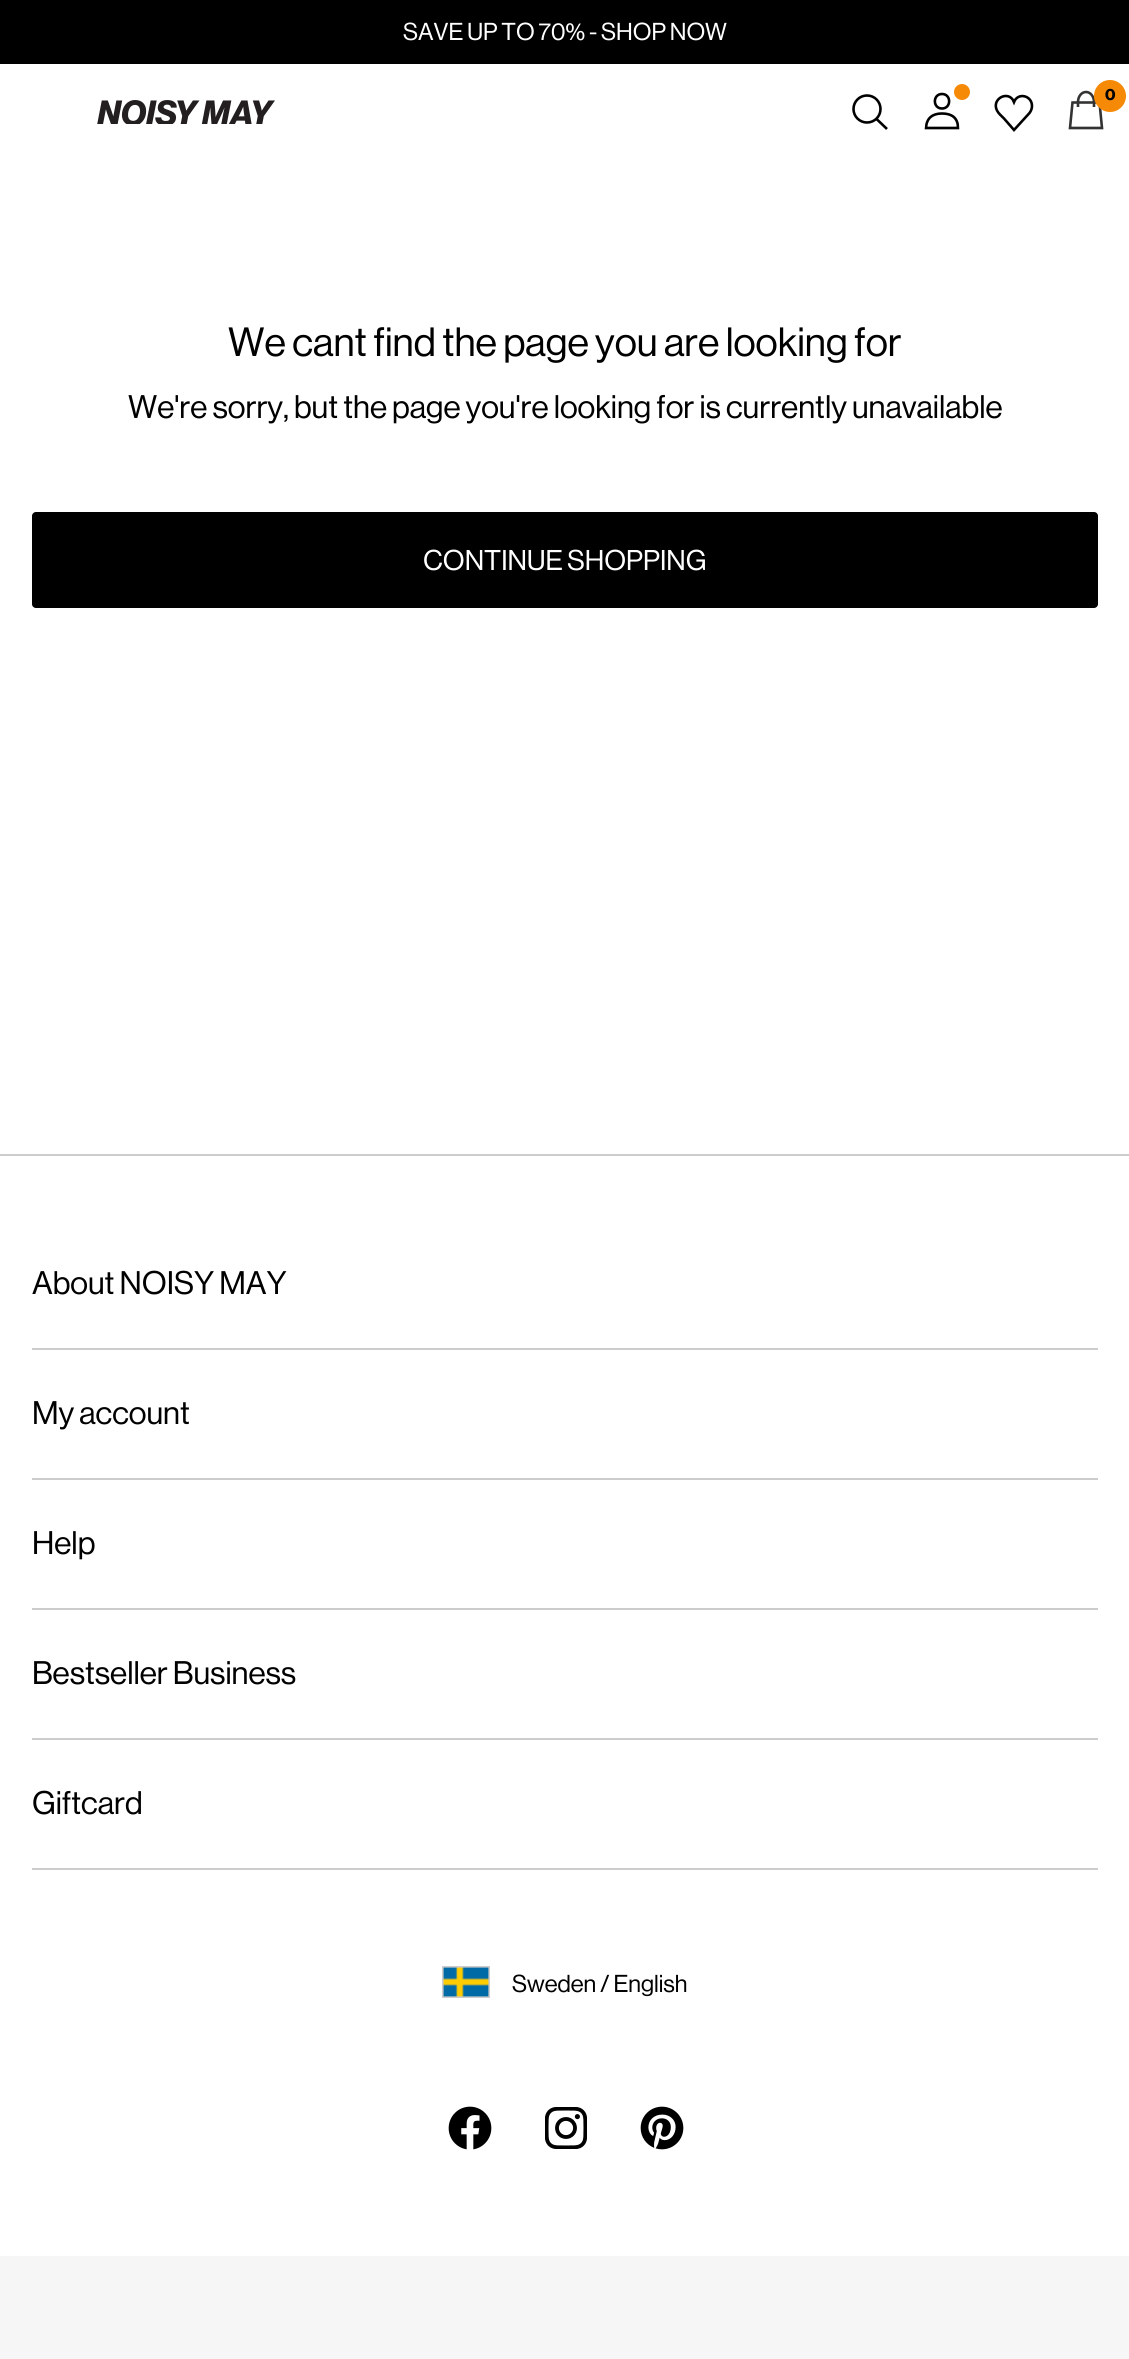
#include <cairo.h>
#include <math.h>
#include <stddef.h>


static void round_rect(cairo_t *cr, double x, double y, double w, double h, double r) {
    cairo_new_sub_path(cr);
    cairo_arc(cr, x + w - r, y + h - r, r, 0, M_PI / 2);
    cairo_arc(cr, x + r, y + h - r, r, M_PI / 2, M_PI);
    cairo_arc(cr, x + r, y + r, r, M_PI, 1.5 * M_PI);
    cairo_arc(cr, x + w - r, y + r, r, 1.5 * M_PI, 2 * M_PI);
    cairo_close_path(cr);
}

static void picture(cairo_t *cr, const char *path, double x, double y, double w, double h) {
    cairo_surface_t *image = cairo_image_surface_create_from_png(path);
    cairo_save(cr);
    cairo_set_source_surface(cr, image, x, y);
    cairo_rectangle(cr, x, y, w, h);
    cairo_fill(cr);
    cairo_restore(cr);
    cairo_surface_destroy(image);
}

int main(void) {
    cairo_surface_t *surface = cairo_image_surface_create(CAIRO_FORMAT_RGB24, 1129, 2359);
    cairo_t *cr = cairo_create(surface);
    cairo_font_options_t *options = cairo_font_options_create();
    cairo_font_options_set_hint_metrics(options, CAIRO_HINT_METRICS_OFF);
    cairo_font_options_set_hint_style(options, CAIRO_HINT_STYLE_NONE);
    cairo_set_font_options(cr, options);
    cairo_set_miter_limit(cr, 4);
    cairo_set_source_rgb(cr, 1, 1, 1);
    cairo_paint(cr);
    cairo_set_source_rgb(cr, 0, 0, 0);
    cairo_rectangle(cr, 0, 0, 1129, 64);
    cairo_fill(cr);
    cairo_select_font_face(cr, "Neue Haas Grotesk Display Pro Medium", CAIRO_FONT_SLANT_NORMAL, CAIRO_FONT_WEIGHT_NORMAL);
    cairo_set_font_size(cr, 24);
    cairo_set_source_rgb(cr, 1, 1, 1);
    cairo_move_to(cr, 403, 40);
    cairo_show_text(cr, "SAVE UP TO 70% - SHOP NOW");
    cairo_new_path(cr);
    cairo_arc(cr, 867, 109, 13.5, 0, 2 * M_PI);
    cairo_set_source_rgb(cr, 0, 0, 0);
    cairo_set_line_width(cr, 2.6);
    cairo_stroke(cr);
    cairo_new_path(cr);
    cairo_move_to(cr, 876, 118.5);
    cairo_line_to(cr, 887, 129);
    cairo_stroke(cr);
    cairo_new_path(cr);
    cairo_move_to(cr, 926, 128);
    cairo_line_to(cr, 958, 128);
    cairo_curve_to(cr, 958, 118, 952, 113.5, 942, 113.5);
    cairo_curve_to(cr, 932.5, 113.5, 926.5, 118, 926, 128);
    cairo_close_path(cr);
    cairo_move_to(cr, 942, 108.5);
    cairo_curve_to(cr, 951.5, 108.5, 951.5, 94, 942, 94);
    cairo_curve_to(cr, 932.5, 94, 932.5, 108.5, 942, 108.5);
    cairo_close_path(cr);
    cairo_stroke(cr);
    cairo_set_source_rgb(cr, 0.961, 0.541, 0.027);
    cairo_arc(cr, 962, 92, 8, 0, 2 * M_PI);
    cairo_fill(cr);
    cairo_new_path(cr);
    cairo_move_to(cr, 1032, 106);
    cairo_curve_to(cr, 1032, 95.5, 1018, 92, 1014, 102);
    cairo_curve_to(cr, 1009, 89.5, 991, 98.5, 997, 110.5);
    cairo_curve_to(cr, 998.5, 113.5, 1001.5, 116, 1004, 118.5);
    cairo_line_to(cr, 1014, 130);
    cairo_line_to(cr, 1029.5, 113);
    cairo_curve_to(cr, 1031, 111, 1032, 108.5, 1032, 106);
    cairo_close_path(cr);
    cairo_set_source_rgb(cr, 0, 0, 0);
    cairo_stroke(cr);
    cairo_new_path(cr);
    cairo_move_to(cr, 1070, 128);
    cairo_line_to(cr, 1072.5, 102.5);
    cairo_line_to(cr, 1099.5, 102.5);
    cairo_line_to(cr, 1102, 128);
    cairo_close_path(cr);
    cairo_move_to(cr, 1094, 107);
    cairo_line_to(cr, 1094, 102);
    cairo_curve_to(cr, 1094, 96.5, 1090.5, 92, 1086, 92);
    cairo_curve_to(cr, 1081.5, 92, 1078, 96.5, 1078, 102);
    cairo_line_to(cr, 1078, 107);
    cairo_set_source_rgb(cr, 0.2, 0.2, 0.2);
    cairo_stroke(cr);
    cairo_set_source_rgb(cr, 0.961, 0.541, 0.027);
    cairo_arc(cr, 1110, 96, 16, 0, 2 * M_PI);
    cairo_fill(cr);
    cairo_select_font_face(cr, "Neue Haas Grotesk Display Pro", CAIRO_FONT_SLANT_NORMAL, CAIRO_FONT_WEIGHT_BOLD);
    cairo_set_font_size(cr, 16);
    cairo_set_source_rgb(cr, 0, 0, 0);
    cairo_move_to(cr, 1105, 100);
    cairo_show_text(cr, "0");
    picture(cr, "img1.png", 97, 100, 178, 24);
    cairo_select_font_face(cr, "Neue Haas Grotesk Display Pro Medium", CAIRO_FONT_SLANT_NORMAL, CAIRO_FONT_WEIGHT_NORMAL);
    cairo_set_font_size(cr, 40);
    cairo_move_to(cr, 228, 356);
    cairo_show_text(cr, "We cant find the page you are looking for");
    cairo_set_font_size(cr, 32);
    cairo_move_to(cr, 128, 418);
    cairo_show_text(cr, "We're sorry, but the page you're looking for is currently unavailable");
    round_rect(cr, 32, 512, 1066, 96, 4);
    cairo_fill(cr);
    cairo_set_font_size(cr, 28);
    cairo_set_source_rgb(cr, 1, 1, 1);
    cairo_move_to(cr, 423, 570);
    cairo_show_text(cr, "CONTINUE SHOPPING");
    cairo_set_source_rgb(cr, 0.8, 0.8, 0.8);
    cairo_rectangle(cr, 0, 1154, 1129, 2);
    cairo_fill(cr);
    cairo_rectangle(cr, 32, 1348, 1066, 2);
    cairo_fill(cr);
    cairo_set_font_size(cr, 32);
    cairo_set_source_rgb(cr, 0, 0, 0);
    cairo_move_to(cr, 32, 1294);
    cairo_show_text(cr, "About NOISY MAY");
    cairo_set_source_rgb(cr, 0.8, 0.8, 0.8);
    cairo_rectangle(cr, 32, 1478, 1066, 2);
    cairo_fill(cr);
    cairo_set_source_rgb(cr, 0, 0, 0);
    cairo_move_to(cr, 32, 1424);
    cairo_show_text(cr, "My account");
    cairo_set_source_rgb(cr, 0.8, 0.8, 0.8);
    cairo_rectangle(cr, 32, 1608, 1066, 2);
    cairo_fill(cr);
    cairo_set_source_rgb(cr, 0, 0, 0);
    cairo_move_to(cr, 32, 1554);
    cairo_show_text(cr, "Help");
    cairo_set_source_rgb(cr, 0.8, 0.8, 0.8);
    cairo_rectangle(cr, 32, 1738, 1066, 2);
    cairo_fill(cr);
    cairo_set_source_rgb(cr, 0, 0, 0);
    cairo_move_to(cr, 32, 1684);
    cairo_show_text(cr, "Bestseller Business");
    cairo_set_source_rgb(cr, 0.8, 0.8, 0.8);
    cairo_rectangle(cr, 32, 1868, 1066, 2);
    cairo_fill(cr);
    cairo_set_source_rgb(cr, 0, 0, 0);
    cairo_move_to(cr, 32, 1814);
    cairo_show_text(cr, "Giftcard");
    picture(cr, "img2.png", 442, 1966, 48, 32);
    cairo_set_font_size(cr, 24);
    cairo_move_to(cr, 512, 1992);
    cairo_show_text(cr, "Sweden / English");
    picture(cr, "img3.png", 448, 2106, 44, 44);
    picture(cr, "img4.png", 545, 2107, 42, 42);
    picture(cr, "img5.png", 640, 2106, 44, 44);
    cairo_set_source_rgb(cr, 0.961, 0.961, 0.961);
    cairo_rectangle(cr, 0, 2256, 1129, 103);
    cairo_fill(cr);
    cairo_surface_write_to_png(surface, "page.png");
    cairo_font_options_destroy(options);
    cairo_destroy(cr);
    cairo_surface_destroy(surface);
    return 0;
}
